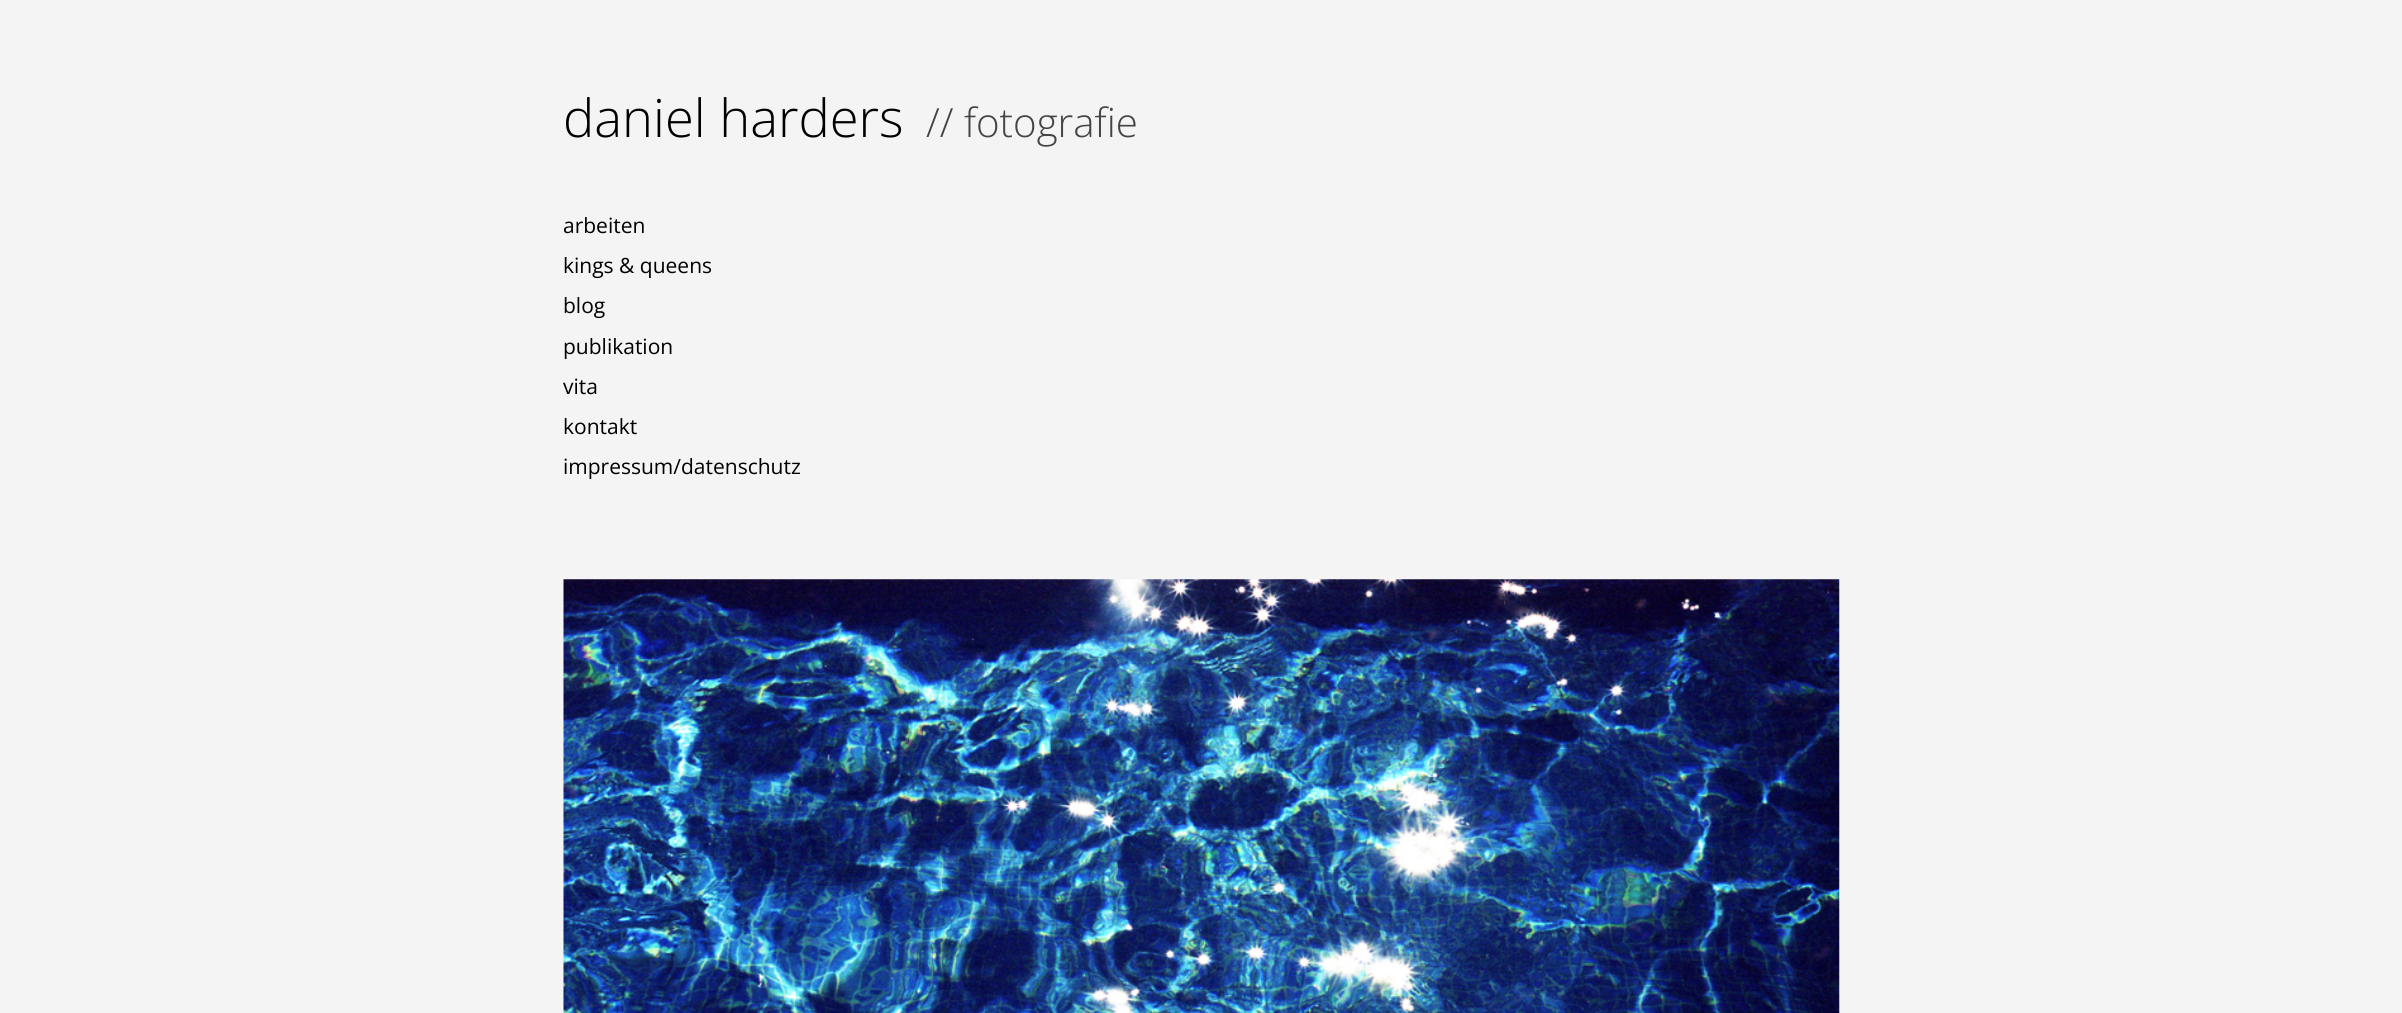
#include <cairo.h>
#include <math.h>
#include <stddef.h>


static void picture(cairo_t *cr, const char *path, double x, double y, double w, double h) {
    cairo_surface_t *image = cairo_image_surface_create_from_png(path);
    cairo_save(cr);
    cairo_set_source_surface(cr, image, x, y);
    cairo_rectangle(cr, x, y, w, h);
    cairo_fill(cr);
    cairo_restore(cr);
    cairo_surface_destroy(image);
}

int main(void) {
    cairo_surface_t *surface = cairo_image_surface_create(CAIRO_FORMAT_RGB24, 2402, 1013);
    cairo_t *cr = cairo_create(surface);
    cairo_font_options_t *options = cairo_font_options_create();
    cairo_font_options_set_hint_metrics(options, CAIRO_HINT_METRICS_OFF);
    cairo_font_options_set_hint_style(options, CAIRO_HINT_STYLE_NONE);
    cairo_set_font_options(cr, options);
    cairo_set_miter_limit(cr, 4);
    cairo_set_source_rgb(cr, 0.957, 0.957, 0.957);
    cairo_paint(cr);
    cairo_select_font_face(cr, "Open Sans Light", CAIRO_FONT_SLANT_NORMAL, CAIRO_FONT_WEIGHT_NORMAL);
    cairo_set_font_size(cr, 52.5);
    cairo_set_source_rgb(cr, 0, 0, 0);
    cairo_move_to(cr, 563, 137);
    cairo_show_text(cr, "daniel harders");
    cairo_set_font_size(cr, 40.25);
    cairo_set_source_rgb(cr, 0.267, 0.267, 0.267);
    cairo_move_to(cr, 926, 137);
    cairo_show_text(cr, "// fotografie");
    cairo_select_font_face(cr, "Open Sans", CAIRO_FONT_SLANT_NORMAL, CAIRO_FONT_WEIGHT_NORMAL);
    cairo_set_font_size(cr, 21);
    cairo_set_source_rgb(cr, 0, 0, 0);
    cairo_move_to(cr, 563, 233);
    cairo_show_text(cr, "arbeiten");
    cairo_move_to(cr, 563, 273);
    cairo_show_text(cr, "kings & queens");
    cairo_move_to(cr, 563, 313);
    cairo_show_text(cr, "blog");
    cairo_move_to(cr, 563, 354);
    cairo_show_text(cr, "publikation");
    cairo_move_to(cr, 563, 394);
    cairo_show_text(cr, "vita");
    cairo_move_to(cr, 563, 434);
    cairo_show_text(cr, "kontakt");
    cairo_move_to(cr, 563, 474);
    cairo_show_text(cr, "impressum/datenschutz");
    picture(cr, "img1.png", 563, 579, 1277, 434);
    cairo_surface_write_to_png(surface, "page.png");
    cairo_font_options_destroy(options);
    cairo_destroy(cr);
    cairo_surface_destroy(surface);
    return 0;
}
